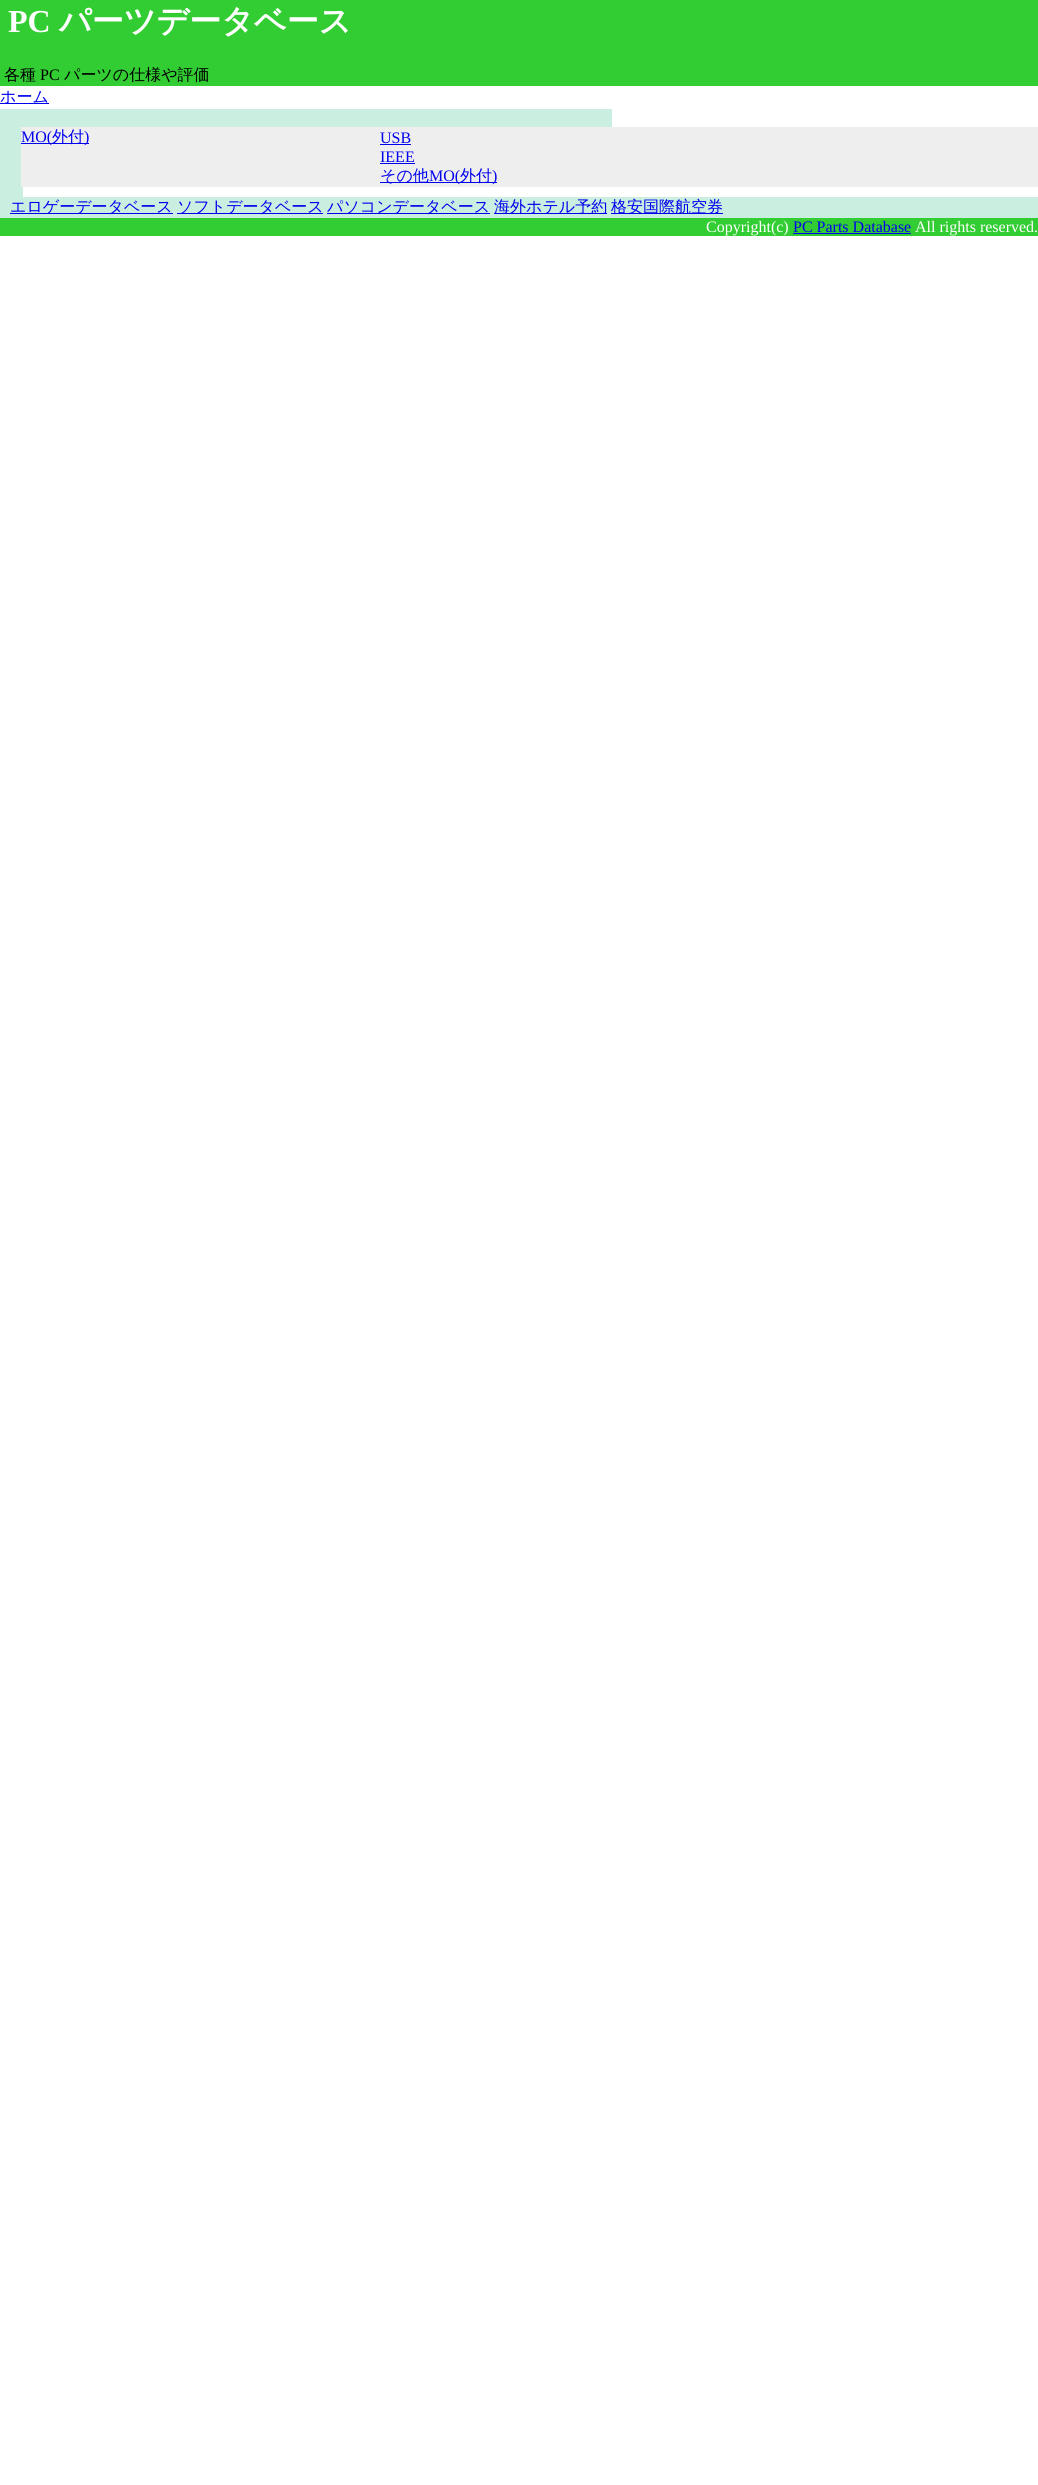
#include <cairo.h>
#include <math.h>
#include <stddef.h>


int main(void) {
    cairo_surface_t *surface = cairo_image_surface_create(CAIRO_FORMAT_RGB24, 1038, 2485);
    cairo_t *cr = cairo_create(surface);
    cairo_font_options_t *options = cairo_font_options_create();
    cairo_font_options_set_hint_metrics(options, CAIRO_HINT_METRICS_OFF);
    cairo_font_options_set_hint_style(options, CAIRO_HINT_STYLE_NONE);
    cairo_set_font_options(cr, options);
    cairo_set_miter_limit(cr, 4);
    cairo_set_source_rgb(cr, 1, 1, 1);
    cairo_paint(cr);
    cairo_set_source_rgb(cr, 0.196, 0.804, 0.196);
    cairo_rectangle(cr, 0, 0, 1026, 86);
    cairo_fill(cr);
    cairo_select_font_face(cr, "Liberation Serif", CAIRO_FONT_SLANT_NORMAL, CAIRO_FONT_WEIGHT_BOLD);
    cairo_set_font_size(cr, 32);
    cairo_set_source_rgb(cr, 1, 1, 1);
    cairo_move_to(cr, 8, 32);
    cairo_show_text(cr, "PC");
    cairo_select_font_face(cr, "WenQuanYi Zen Hei", CAIRO_FONT_SLANT_NORMAL, CAIRO_FONT_WEIGHT_BOLD);
    cairo_move_to(cr, 59, 32);
    cairo_show_text(cr, "パーツデータベース");
    cairo_select_font_face(cr, "WenQuanYi Zen Hei Medium", CAIRO_FONT_SLANT_NORMAL, CAIRO_FONT_WEIGHT_NORMAL);
    cairo_set_font_size(cr, 16);
    cairo_set_source_rgb(cr, 0, 0, 0);
    cairo_move_to(cr, 4, 80);
    cairo_show_text(cr, "各種");
    cairo_select_font_face(cr, "Liberation Serif", CAIRO_FONT_SLANT_NORMAL, CAIRO_FONT_WEIGHT_NORMAL);
    cairo_move_to(cr, 40, 80);
    cairo_show_text(cr, "PC");
    cairo_select_font_face(cr, "WenQuanYi Zen Hei Medium", CAIRO_FONT_SLANT_NORMAL, CAIRO_FONT_WEIGHT_NORMAL);
    cairo_move_to(cr, 64, 80);
    cairo_show_text(cr, "パーツの仕様や評価");
    cairo_set_source_rgb(cr, 0.196, 0.804, 0.196);
    cairo_rectangle(cr, 1026, 0, 12, 86);
    cairo_fill(cr);
    cairo_set_source_rgb(cr, 0, 0, 0.933);
    cairo_rectangle(cr, 0, 103, 49, 1);
    cairo_fill(cr);
    cairo_move_to(cr, 0, 102);
    cairo_show_text(cr, "ホーム");
    cairo_set_source_rgb(cr, 0.792, 0.933, 0.878);
    cairo_rectangle(cr, 0, 109, 612, 18);
    cairo_fill(cr);
    cairo_rectangle(cr, 0, 127, 21, 60);
    cairo_fill(cr);
    cairo_set_source_rgb(cr, 0.933, 0.933, 0.933);
    cairo_rectangle(cr, 21, 127, 1017, 60);
    cairo_fill(cr);
    cairo_set_source_rgb(cr, 0, 0, 0.933);
    cairo_rectangle(cr, 21, 143, 68, 1);
    cairo_fill(cr);
    cairo_select_font_face(cr, "Liberation Serif", CAIRO_FONT_SLANT_NORMAL, CAIRO_FONT_WEIGHT_NORMAL);
    cairo_move_to(cr, 21, 142);
    cairo_show_text(cr, "MO(");
    cairo_select_font_face(cr, "WenQuanYi Zen Hei Medium", CAIRO_FONT_SLANT_NORMAL, CAIRO_FONT_WEIGHT_NORMAL);
    cairo_move_to(cr, 52, 142);
    cairo_show_text(cr, "外付");
    cairo_select_font_face(cr, "Liberation Serif", CAIRO_FONT_SLANT_NORMAL, CAIRO_FONT_WEIGHT_NORMAL);
    cairo_move_to(cr, 84, 142);
    cairo_show_text(cr, ")");
    cairo_move_to(cr, 380, 143);
    cairo_show_text(cr, "USB");
    cairo_rectangle(cr, 380, 144, 31, 1);
    cairo_fill(cr);
    cairo_move_to(cr, 380, 162);
    cairo_show_text(cr, "IEEE");
    cairo_rectangle(cr, 380, 163, 35, 1);
    cairo_fill(cr);
    cairo_rectangle(cr, 380, 182, 117, 1);
    cairo_fill(cr);
    cairo_select_font_face(cr, "WenQuanYi Zen Hei Medium", CAIRO_FONT_SLANT_NORMAL, CAIRO_FONT_WEIGHT_NORMAL);
    cairo_move_to(cr, 380, 181);
    cairo_show_text(cr, "その他");
    cairo_select_font_face(cr, "Liberation Serif", CAIRO_FONT_SLANT_NORMAL, CAIRO_FONT_WEIGHT_NORMAL);
    cairo_move_to(cr, 429, 181);
    cairo_show_text(cr, "MO(");
    cairo_select_font_face(cr, "WenQuanYi Zen Hei Medium", CAIRO_FONT_SLANT_NORMAL, CAIRO_FONT_WEIGHT_NORMAL);
    cairo_move_to(cr, 460, 181);
    cairo_show_text(cr, "外付");
    cairo_select_font_face(cr, "Liberation Serif", CAIRO_FONT_SLANT_NORMAL, CAIRO_FONT_WEIGHT_NORMAL);
    cairo_move_to(cr, 492, 181);
    cairo_show_text(cr, ")");
    cairo_set_source_rgb(cr, 0.792, 0.933, 0.878);
    cairo_rectangle(cr, 0, 187, 23, 10);
    cairo_fill(cr);
    cairo_rectangle(cr, 0, 197, 1038, 21);
    cairo_fill(cr);
    cairo_set_source_rgb(cr, 0, 0, 0.933);
    cairo_rectangle(cr, 10, 213, 163, 1);
    cairo_fill(cr);
    cairo_select_font_face(cr, "WenQuanYi Zen Hei Medium", CAIRO_FONT_SLANT_NORMAL, CAIRO_FONT_WEIGHT_NORMAL);
    cairo_move_to(cr, 10, 212);
    cairo_show_text(cr, "エロゲーデータベース");
    cairo_rectangle(cr, 177, 213, 146, 1);
    cairo_fill(cr);
    cairo_move_to(cr, 177, 212);
    cairo_show_text(cr, "ソフトデータベース");
    cairo_rectangle(cr, 327, 213, 163, 1);
    cairo_fill(cr);
    cairo_move_to(cr, 327, 212);
    cairo_show_text(cr, "パソコンデータベース");
    cairo_rectangle(cr, 494, 213, 113, 1);
    cairo_fill(cr);
    cairo_move_to(cr, 494, 212);
    cairo_show_text(cr, "海外ホテル予約");
    cairo_rectangle(cr, 611, 213, 112, 1);
    cairo_fill(cr);
    cairo_move_to(cr, 611, 212);
    cairo_show_text(cr, "格安国際航空券");
    cairo_set_source_rgb(cr, 0.196, 0.804, 0.196);
    cairo_rectangle(cr, 0, 218, 1038, 18);
    cairo_fill(cr);
    cairo_select_font_face(cr, "Liberation Serif", CAIRO_FONT_SLANT_NORMAL, CAIRO_FONT_WEIGHT_NORMAL);
    cairo_set_source_rgb(cr, 1, 1, 1);
    cairo_move_to(cr, 706, 232);
    cairo_show_text(cr, "Copyright(c)");
    cairo_set_source_rgb(cr, 0, 0, 0.933);
    cairo_move_to(cr, 793, 232);
    cairo_show_text(cr, "PC Parts Database");
    cairo_rectangle(cr, 793, 233, 118, 1);
    cairo_fill(cr);
    cairo_set_source_rgb(cr, 1, 1, 1);
    cairo_move_to(cr, 915, 232);
    cairo_show_text(cr, "All rights reserved.");
    cairo_surface_write_to_png(surface, "page.png");
    cairo_font_options_destroy(options);
    cairo_destroy(cr);
    cairo_surface_destroy(surface);
    return 0;
}
